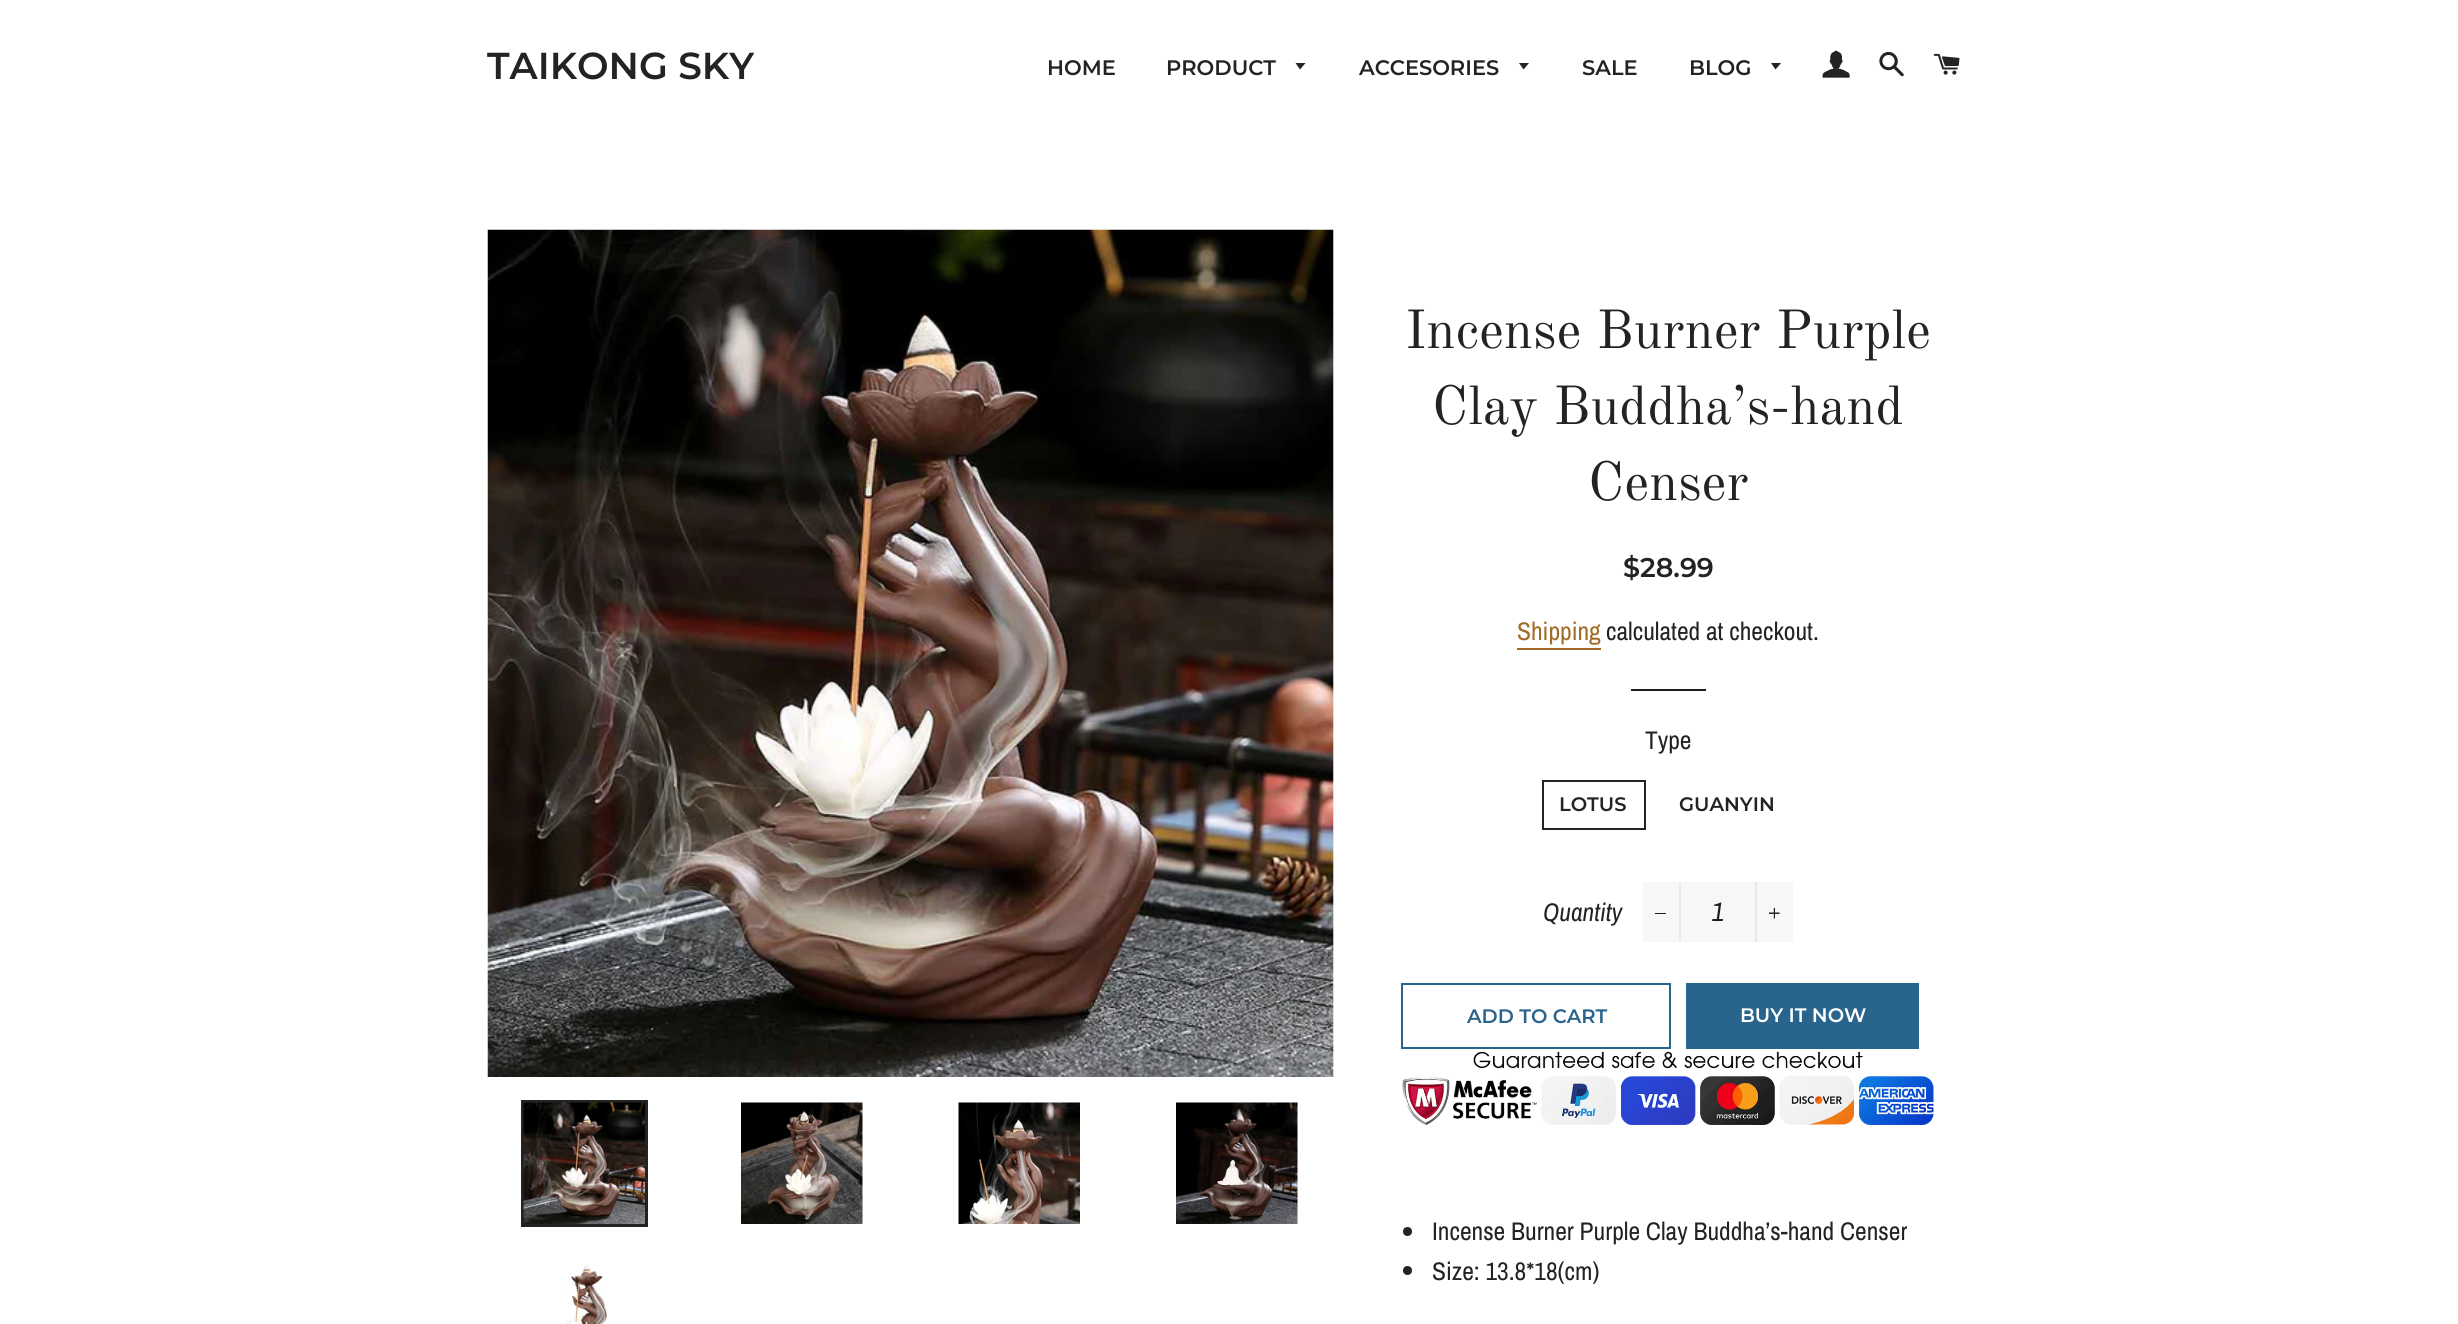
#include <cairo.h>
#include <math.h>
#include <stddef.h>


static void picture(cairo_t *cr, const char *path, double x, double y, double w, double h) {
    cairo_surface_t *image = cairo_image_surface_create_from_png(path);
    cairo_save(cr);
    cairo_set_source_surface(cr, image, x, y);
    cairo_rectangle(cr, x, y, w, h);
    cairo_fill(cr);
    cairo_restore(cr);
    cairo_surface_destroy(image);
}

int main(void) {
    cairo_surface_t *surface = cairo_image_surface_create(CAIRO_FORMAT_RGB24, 2458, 1324);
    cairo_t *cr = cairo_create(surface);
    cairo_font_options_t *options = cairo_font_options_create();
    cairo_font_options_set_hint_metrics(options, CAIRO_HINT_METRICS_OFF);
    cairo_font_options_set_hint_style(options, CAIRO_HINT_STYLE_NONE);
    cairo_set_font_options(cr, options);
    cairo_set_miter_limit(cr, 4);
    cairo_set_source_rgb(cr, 1, 1, 1);
    cairo_paint(cr);
    cairo_select_font_face(cr, "Montserrat SemiBold", CAIRO_FONT_SLANT_NORMAL, CAIRO_FONT_WEIGHT_NORMAL);
    cairo_set_font_size(cr, 37.5);
    cairo_set_source_rgb(cr, 0.133, 0.137, 0.137);
    cairo_move_to(cr, 487, 79);
    cairo_show_text(cr, "TAIKONG SKY");
    cairo_set_font_size(cr, 21);
    cairo_move_to(cr, 1047, 75);
    cairo_show_text(cr, "HOME");
    cairo_move_to(cr, 1166, 75);
    cairo_show_text(cr, "PRODUCT");
    cairo_new_path(cr);
    cairo_move_to(cr, 1295.5, 63);
    cairo_line_to(cr, 1300, 69.5);
    cairo_line_to(cr, 1305.5, 63);
    cairo_close_path(cr);
    cairo_fill(cr);
    cairo_move_to(cr, 1359, 75);
    cairo_show_text(cr, "ACCESORIES");
    cairo_new_path(cr);
    cairo_move_to(cr, 1519, 63);
    cairo_line_to(cr, 1523.5, 69.5);
    cairo_line_to(cr, 1529, 63);
    cairo_close_path(cr);
    cairo_fill(cr);
    cairo_move_to(cr, 1582, 75);
    cairo_show_text(cr, "SALE");
    cairo_move_to(cr, 1689, 75);
    cairo_show_text(cr, "BLOG");
    cairo_new_path(cr);
    cairo_move_to(cr, 1771, 63);
    cairo_line_to(cr, 1775.5, 69.5);
    cairo_line_to(cr, 1781, 63);
    cairo_close_path(cr);
    cairo_fill(cr);
    picture(cr, "img1.png", 1822, 50, 28, 28);
    picture(cr, "img2.png", 1879, 51, 25, 26);
    picture(cr, "img3.png", 1933, 53, 27, 22);
    cairo_set_source_rgb(cr, 0.969, 0.969, 0.969);
    cairo_rectangle(cr, 1333, 230, 1, 847);
    cairo_fill(cr);
    picture(cr, "img4.png", 487, 229, 847, 848);
    cairo_rectangle(cr, 522.5, 1101.5, 124, 124);
    cairo_set_source_rgb(cr, 0.133, 0.137, 0.137);
    cairo_set_line_width(cr, 3);
    cairo_stroke(cr);
    picture(cr, "img5.png", 523, 1102, 122, 122);
    picture(cr, "img6.png", 741, 1102, 122, 122);
    picture(cr, "img7.png", 958, 1102, 122, 122);
    picture(cr, "img8.png", 1176, 1102, 122, 122);
    picture(cr, "img9.png", 566, 1264, 42, 60);
    cairo_select_font_face(cr, "Old Standard TT", CAIRO_FONT_SLANT_NORMAL, CAIRO_FONT_WEIGHT_NORMAL);
    cairo_set_font_size(cr, 54);
    cairo_move_to(cr, 1405, 348);
    cairo_show_text(cr, "Incense Burner Purple");
    cairo_move_to(cr, 1432, 424);
    cairo_show_text(cr, "Clay Buddha’s-hand");
    cairo_move_to(cr, 1588, 500);
    cairo_show_text(cr, "Censer");
    cairo_select_font_face(cr, "Montserrat SemiBold", CAIRO_FONT_SLANT_NORMAL, CAIRO_FONT_WEIGHT_NORMAL);
    cairo_set_font_size(cr, 27);
    cairo_move_to(cr, 1623, 577);
    cairo_show_text(cr, "$28.99");
    cairo_select_font_face(cr, "Archivo Narrow", CAIRO_FONT_SLANT_NORMAL, CAIRO_FONT_WEIGHT_NORMAL);
    cairo_set_font_size(cr, 25.5);
    cairo_set_source_rgb(cr, 0.635, 0.42, 0.145);
    cairo_move_to(cr, 1517, 640);
    cairo_show_text(cr, "Shipping");
    cairo_rectangle(cr, 1517, 648, 84, 2);
    cairo_fill(cr);
    cairo_set_source_rgb(cr, 0.133, 0.137, 0.137);
    cairo_move_to(cr, 1606, 640);
    cairo_show_text(cr, "calculated at checkout.");
    cairo_set_source_rgb(cr, 0.11, 0.114, 0.114);
    cairo_rectangle(cr, 1631, 689, 75, 2);
    cairo_fill(cr);
    cairo_set_source_rgb(cr, 0.133, 0.137, 0.137);
    cairo_move_to(cr, 1645, 749);
    cairo_show_text(cr, "Type");
    cairo_rectangle(cr, 1543, 781, 102, 48);
    cairo_set_line_width(cr, 2);
    cairo_stroke(cr);
    cairo_select_font_face(cr, "Montserrat SemiBold", CAIRO_FONT_SLANT_NORMAL, CAIRO_FONT_WEIGHT_NORMAL);
    cairo_set_font_size(cr, 19.5);
    cairo_move_to(cr, 1559, 811);
    cairo_show_text(cr, "LOTUS");
    cairo_move_to(cr, 1679, 811);
    cairo_show_text(cr, "GUANYIN");
    cairo_select_font_face(cr, "Archivo Narrow", CAIRO_FONT_SLANT_ITALIC, CAIRO_FONT_WEIGHT_NORMAL);
    cairo_set_font_size(cr, 25.5);
    cairo_move_to(cr, 1543, 921);
    cairo_show_text(cr, "Quantity");
    cairo_set_source_rgb(cr, 0.965, 0.965, 0.965);
    cairo_rectangle(cr, 1643, 882, 150, 60);
    cairo_fill(cr);
    cairo_set_source_rgb(cr, 0.914, 0.914, 0.914);
    cairo_rectangle(cr, 1679, 882, 2, 60);
    cairo_fill(cr);
    cairo_set_source_rgb(cr, 0.11, 0.114, 0.114);
    cairo_rectangle(cr, 1655, 913, 11, 1);
    cairo_fill(cr);
    cairo_set_font_size(cr, 27);
    cairo_move_to(cr, 1712, 921);
    cairo_show_text(cr, "1");
    cairo_set_source_rgb(cr, 0.914, 0.914, 0.914);
    cairo_rectangle(cr, 1755, 882, 2, 60);
    cairo_fill(cr);
    picture(cr, "img10.png", 1769, 907, 11, 12);
    cairo_rectangle(cr, 1402, 984, 268, 64);
    cairo_set_source_rgb(cr, 0.161, 0.392, 0.553);
    cairo_stroke(cr);
    cairo_select_font_face(cr, "Montserrat SemiBold", CAIRO_FONT_SLANT_NORMAL, CAIRO_FONT_WEIGHT_NORMAL);
    cairo_set_font_size(cr, 19.5);
    cairo_move_to(cr, 1467, 1023);
    cairo_show_text(cr, "ADD TO CART");
    cairo_rectangle(cr, 1686, 983, 233, 66);
    cairo_fill(cr);
    cairo_set_source_rgb(cr, 1, 1, 1);
    cairo_move_to(cr, 1740, 1022);
    cairo_show_text(cr, "BUY IT NOW");
    picture(cr, "img11.png", 1402, 1051, 532, 74);
    cairo_set_source_rgb(cr, 0.133, 0.137, 0.137);
    cairo_arc(cr, 1407.5, 1231.5, 4.5, 0, 2 * M_PI);
    cairo_fill(cr);
    cairo_select_font_face(cr, "Archivo Narrow", CAIRO_FONT_SLANT_NORMAL, CAIRO_FONT_WEIGHT_NORMAL);
    cairo_set_font_size(cr, 25.5);
    cairo_move_to(cr, 1432, 1240);
    cairo_show_text(cr, "Incense Burner Purple Clay Buddha’s-hand Censer");
    cairo_new_path(cr);
    cairo_arc(cr, 1407.5, 1270.5, 4.5, 0, 2 * M_PI);
    cairo_fill(cr);
    cairo_move_to(cr, 1432, 1280);
    cairo_show_text(cr, "Size: 13.8*18(cm)");
    cairo_surface_write_to_png(surface, "page.png");
    cairo_font_options_destroy(options);
    cairo_destroy(cr);
    cairo_surface_destroy(surface);
    return 0;
}
